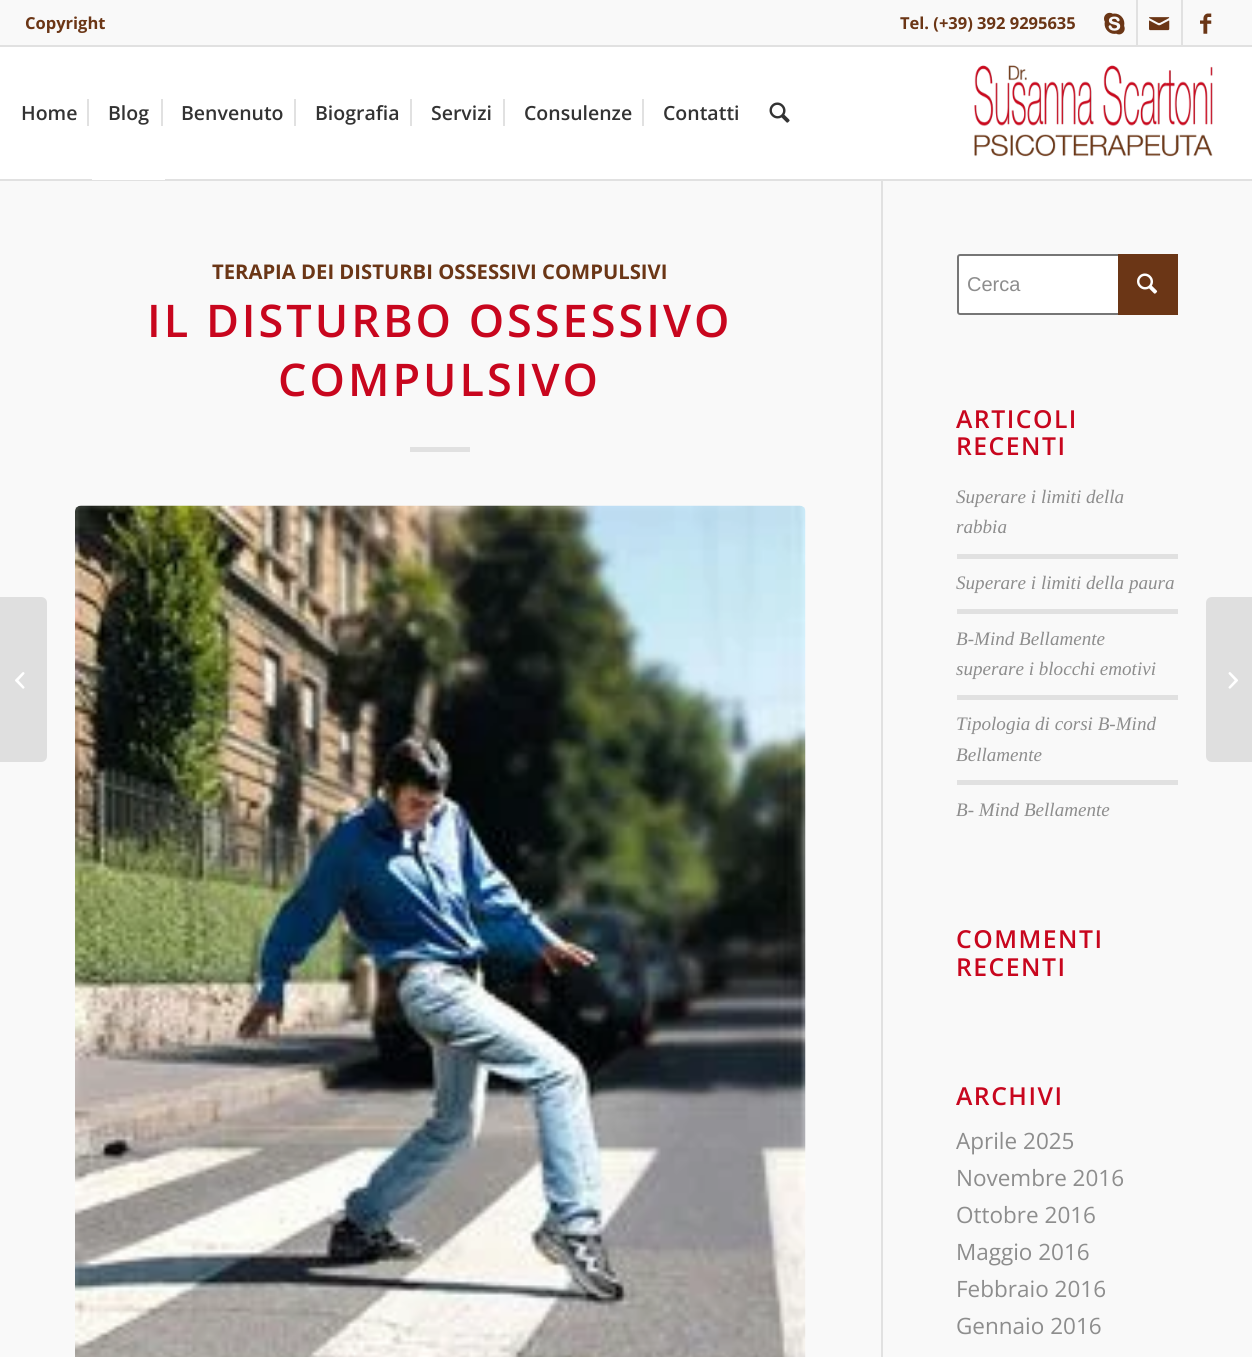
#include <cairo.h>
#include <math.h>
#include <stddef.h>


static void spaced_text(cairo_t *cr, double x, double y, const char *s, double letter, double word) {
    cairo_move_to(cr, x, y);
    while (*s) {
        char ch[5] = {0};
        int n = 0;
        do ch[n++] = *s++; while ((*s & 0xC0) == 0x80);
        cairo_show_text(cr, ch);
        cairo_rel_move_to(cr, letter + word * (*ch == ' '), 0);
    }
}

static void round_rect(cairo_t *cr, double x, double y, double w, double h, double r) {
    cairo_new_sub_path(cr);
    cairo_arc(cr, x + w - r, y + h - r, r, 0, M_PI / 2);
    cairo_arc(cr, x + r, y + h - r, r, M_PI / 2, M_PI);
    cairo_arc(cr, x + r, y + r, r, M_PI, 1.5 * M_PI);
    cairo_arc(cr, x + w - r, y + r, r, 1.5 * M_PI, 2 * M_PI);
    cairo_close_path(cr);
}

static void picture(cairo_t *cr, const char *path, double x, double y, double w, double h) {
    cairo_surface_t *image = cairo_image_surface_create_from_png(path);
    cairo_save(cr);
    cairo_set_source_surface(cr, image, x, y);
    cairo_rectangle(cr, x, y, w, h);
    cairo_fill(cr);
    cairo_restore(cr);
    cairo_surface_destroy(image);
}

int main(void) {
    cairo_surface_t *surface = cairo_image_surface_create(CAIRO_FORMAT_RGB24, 1252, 1357);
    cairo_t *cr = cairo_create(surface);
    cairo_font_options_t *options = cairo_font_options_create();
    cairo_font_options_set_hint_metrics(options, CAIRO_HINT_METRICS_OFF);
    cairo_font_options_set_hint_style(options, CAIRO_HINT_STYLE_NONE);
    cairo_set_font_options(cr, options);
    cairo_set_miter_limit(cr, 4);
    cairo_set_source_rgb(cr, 0.973, 0.973, 0.973);
    cairo_paint(cr);
    cairo_set_source_rgb(cr, 0.882, 0.882, 0.882);
    cairo_rectangle(cr, 0, 45, 1252, 2);
    cairo_fill(cr);
    cairo_select_font_face(cr, "Open Sans", CAIRO_FONT_SLANT_NORMAL, CAIRO_FONT_WEIGHT_BOLD);
    cairo_set_font_size(cr, 16.5);
    cairo_set_source_rgb(cr, 0.42, 0.212, 0.086);
    cairo_move_to(cr, 25, 29);
    cairo_show_text(cr, "Copyright");
    cairo_move_to(cr, 900, 29);
    cairo_show_text(cr, "Tel. (+39) 392 9295635");
    cairo_set_source_rgb(cr, 0.882, 0.882, 0.882);
    cairo_rectangle(cr, 1136, 0, 2, 45);
    cairo_fill(cr);
    picture(cr, "img1.png", 1104, 12, 21, 23);
    cairo_rectangle(cr, 1181, 0, 2, 45);
    cairo_fill(cr);
    picture(cr, "img2.png", 1149, 17, 21, 14);
    picture(cr, "img3.png", 1200, 13, 12, 21);
    cairo_set_source_rgb(cr, 1, 1, 1);
    cairo_rectangle(cr, 0, 47, 1252, 132);
    cairo_fill(cr);
    cairo_set_source_rgb(cr, 0.882, 0.882, 0.882);
    cairo_rectangle(cr, 881, 179, 2, 1178);
    cairo_fill(cr);
    cairo_rectangle(cr, 0, 179, 1252, 2);
    cairo_fill(cr);
    cairo_select_font_face(cr, "Open Sans SemiBold", CAIRO_FONT_SLANT_NORMAL, CAIRO_FONT_WEIGHT_NORMAL);
    cairo_set_font_size(cr, 19.5);
    cairo_set_source_rgb(cr, 0.2, 0.2, 0.2);
    cairo_move_to(cr, 21, 120);
    cairo_show_text(cr, "Home");
    cairo_move_to(cr, 108, 120);
    cairo_show_text(cr, "Blog");
    cairo_set_source_rgb(cr, 0.882, 0.882, 0.882);
    cairo_rectangle(cr, 87, 99, 2, 27);
    cairo_fill(cr);
    cairo_set_source_rgb(cr, 1, 1, 1);
    cairo_rectangle(cr, 92, 179, 73, 1);
    cairo_fill(cr);
    cairo_set_source_rgb(cr, 0.2, 0.2, 0.2);
    cairo_move_to(cr, 181, 120);
    cairo_show_text(cr, "Benvenuto");
    cairo_set_source_rgb(cr, 0.882, 0.882, 0.882);
    cairo_rectangle(cr, 161, 99, 2, 27);
    cairo_fill(cr);
    cairo_set_source_rgb(cr, 0.2, 0.2, 0.2);
    cairo_move_to(cr, 315, 120);
    cairo_show_text(cr, "Biografia");
    cairo_set_source_rgb(cr, 0.882, 0.882, 0.882);
    cairo_rectangle(cr, 294, 99, 2, 27);
    cairo_fill(cr);
    cairo_set_source_rgb(cr, 0.2, 0.2, 0.2);
    cairo_move_to(cr, 431, 120);
    cairo_show_text(cr, "Servizi");
    cairo_set_source_rgb(cr, 0.882, 0.882, 0.882);
    cairo_rectangle(cr, 410, 99, 2, 27);
    cairo_fill(cr);
    cairo_set_source_rgb(cr, 0.2, 0.2, 0.2);
    cairo_move_to(cr, 524, 120);
    cairo_show_text(cr, "Consulenze");
    cairo_set_source_rgb(cr, 0.882, 0.882, 0.882);
    cairo_rectangle(cr, 503, 99, 2, 27);
    cairo_fill(cr);
    cairo_set_source_rgb(cr, 0.2, 0.2, 0.2);
    cairo_move_to(cr, 663, 120);
    cairo_show_text(cr, "Contatti");
    cairo_set_source_rgb(cr, 0.882, 0.882, 0.882);
    cairo_rectangle(cr, 642, 99, 2, 27);
    cairo_fill(cr);
    picture(cr, "img4.png", 769, 102, 21, 21);
    picture(cr, "img5.png", 974, 65, 239, 92);
    cairo_set_source_rgb(cr, 0.875, 0.875, 0.875);
    cairo_new_path(cr);
    cairo_move_to(cr, 0, 597);
    cairo_line_to(cr, 41, 597);
    cairo_curve_to(cr, 44.5, 597, 47, 599.5, 47, 603);
    cairo_line_to(cr, 47, 756);
    cairo_curve_to(cr, 47, 759.5, 44.5, 762, 41, 762);
    cairo_line_to(cr, 0, 762);
    cairo_close_path(cr);
    cairo_fill(cr);
    picture(cr, "img6.png", 15, 672, 10, 17);
    cairo_select_font_face(cr, "Open Sans", CAIRO_FONT_SLANT_NORMAL, CAIRO_FONT_WEIGHT_BOLD);
    cairo_set_font_size(cr, 20.25);
    cairo_set_source_rgb(cr, 0.42, 0.212, 0.086);
    cairo_move_to(cr, 212, 279);
    cairo_show_text(cr, "TERAPIA DEI DISTURBI OSSESSIVI COMPULSIVI");
    cairo_select_font_face(cr, "Open Sans SemiBold", CAIRO_FONT_SLANT_NORMAL, CAIRO_FONT_WEIGHT_NORMAL);
    cairo_set_font_size(cr, 45);
    cairo_set_source_rgb(cr, 0.784, 0.027, 0.118);
    spaced_text(cr, 147, 337, "IL DISTURBO OSSESSIVO", 3, 0);
    spaced_text(cr, 278, 396, "COMPULSIVO", 3, 0);
    cairo_set_source_rgb(cr, 0.882, 0.882, 0.882);
    cairo_rectangle(cr, 410, 447, 60, 5);
    cairo_fill(cr);
    picture(cr, "img7.png", 75, 505, 731, 852);
    cairo_set_source_rgb(cr, 1, 1, 1);
    round_rect(cr, 958, 255, 219, 59, 2);
    cairo_fill_preserve(cr);
    cairo_set_source_rgb(cr, 0.463, 0.463, 0.463);
    cairo_stroke(cr);
    cairo_select_font_face(cr, "Liberation Sans", CAIRO_FONT_SLANT_NORMAL, CAIRO_FONT_WEIGHT_NORMAL);
    cairo_set_font_size(cr, 20);
    cairo_set_source_rgb(cr, 0.553, 0.553, 0.553);
    cairo_move_to(cr, 967, 291);
    cairo_show_text(cr, "Cerca");
    cairo_set_source_rgb(cr, 0.42, 0.212, 0.086);
    cairo_rectangle(cr, 1118, 254, 60, 61);
    cairo_fill(cr);
    picture(cr, "img8.png", 1137, 273, 21, 21);
    cairo_select_font_face(cr, "Open Sans SemiBold", CAIRO_FONT_SLANT_NORMAL, CAIRO_FONT_WEIGHT_NORMAL);
    cairo_set_font_size(cr, 24.75);
    cairo_set_source_rgb(cr, 0.784, 0.027, 0.118);
    spaced_text(cr, 956, 428, "ARTICOLI", 1.5, 0);
    spaced_text(cr, 956, 455, "RECENTI", 1.5, 0);
    cairo_select_font_face(cr, "Liberation Serif", CAIRO_FONT_SLANT_ITALIC, CAIRO_FONT_WEIGHT_NORMAL);
    cairo_set_font_size(cr, 19.1);
    cairo_set_source_rgb(cr, 0.553, 0.553, 0.553);
    cairo_move_to(cr, 956, 503);
    cairo_show_text(cr, "Superare i limiti della");
    cairo_move_to(cr, 956, 533);
    cairo_show_text(cr, "rabbia");
    cairo_set_source_rgb(cr, 0.882, 0.882, 0.882);
    cairo_rectangle(cr, 957, 554, 221, 5);
    cairo_fill(cr);
    cairo_set_source_rgb(cr, 0.553, 0.553, 0.553);
    cairo_move_to(cr, 956, 589);
    cairo_show_text(cr, "Superare i limiti della paura");
    cairo_set_source_rgb(cr, 0.882, 0.882, 0.882);
    cairo_rectangle(cr, 957, 609, 221, 5);
    cairo_fill(cr);
    cairo_set_source_rgb(cr, 0.553, 0.553, 0.553);
    cairo_move_to(cr, 956, 645);
    cairo_show_text(cr, "B-Mind Bellamente");
    cairo_move_to(cr, 956, 675);
    cairo_show_text(cr, "superare i blocchi emotivi");
    cairo_set_source_rgb(cr, 0.882, 0.882, 0.882);
    cairo_rectangle(cr, 957, 695, 221, 5);
    cairo_fill(cr);
    cairo_set_source_rgb(cr, 0.553, 0.553, 0.553);
    cairo_move_to(cr, 956, 730);
    cairo_show_text(cr, "Tipologia di corsi B-Mind");
    cairo_move_to(cr, 956, 761);
    cairo_show_text(cr, "Bellamente");
    cairo_set_source_rgb(cr, 0.882, 0.882, 0.882);
    cairo_rectangle(cr, 957, 780, 221, 5);
    cairo_fill(cr);
    cairo_set_source_rgb(cr, 0.553, 0.553, 0.553);
    cairo_move_to(cr, 956, 816);
    cairo_show_text(cr, "B- Mind Bellamente");
    cairo_select_font_face(cr, "Open Sans SemiBold", CAIRO_FONT_SLANT_NORMAL, CAIRO_FONT_WEIGHT_NORMAL);
    cairo_set_font_size(cr, 24.75);
    cairo_set_source_rgb(cr, 0.784, 0.027, 0.118);
    spaced_text(cr, 956, 948, "COMMENTI", 1.5, 0);
    spaced_text(cr, 956, 976, "RECENTI", 1.5, 0);
    spaced_text(cr, 956, 1105, "ARCHIVI", 1.5, 0);
    cairo_select_font_face(cr, "Open Sans", CAIRO_FONT_SLANT_NORMAL, CAIRO_FONT_WEIGHT_NORMAL);
    cairo_set_font_size(cr, 22.5);
    cairo_set_source_rgb(cr, 0.553, 0.553, 0.553);
    cairo_move_to(cr, 956, 1149);
    cairo_show_text(cr, "Aprile 2025");
    cairo_move_to(cr, 956, 1186);
    cairo_show_text(cr, "Novembre 2016");
    cairo_move_to(cr, 956, 1223);
    cairo_show_text(cr, "Ottobre 2016");
    cairo_move_to(cr, 956, 1260);
    cairo_show_text(cr, "Maggio 2016");
    cairo_move_to(cr, 956, 1297);
    cairo_show_text(cr, "Febbraio 2016");
    cairo_move_to(cr, 956, 1334);
    cairo_show_text(cr, "Gennaio 2016");
    cairo_set_source_rgb(cr, 0.875, 0.875, 0.875);
    cairo_new_path(cr);
    cairo_move_to(cr, 1212, 597);
    cairo_line_to(cr, 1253, 597);
    cairo_line_to(cr, 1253, 762);
    cairo_line_to(cr, 1212, 762);
    cairo_curve_to(cr, 1208.5, 762, 1206, 759.5, 1206, 756);
    cairo_line_to(cr, 1206, 603);
    cairo_curve_to(cr, 1206, 599.5, 1208.5, 597, 1212, 597);
    cairo_close_path(cr);
    cairo_fill(cr);
    picture(cr, "img9.png", 1228, 672, 10, 17);
    cairo_surface_write_to_png(surface, "page.png");
    cairo_font_options_destroy(options);
    cairo_destroy(cr);
    cairo_surface_destroy(surface);
    return 0;
}
